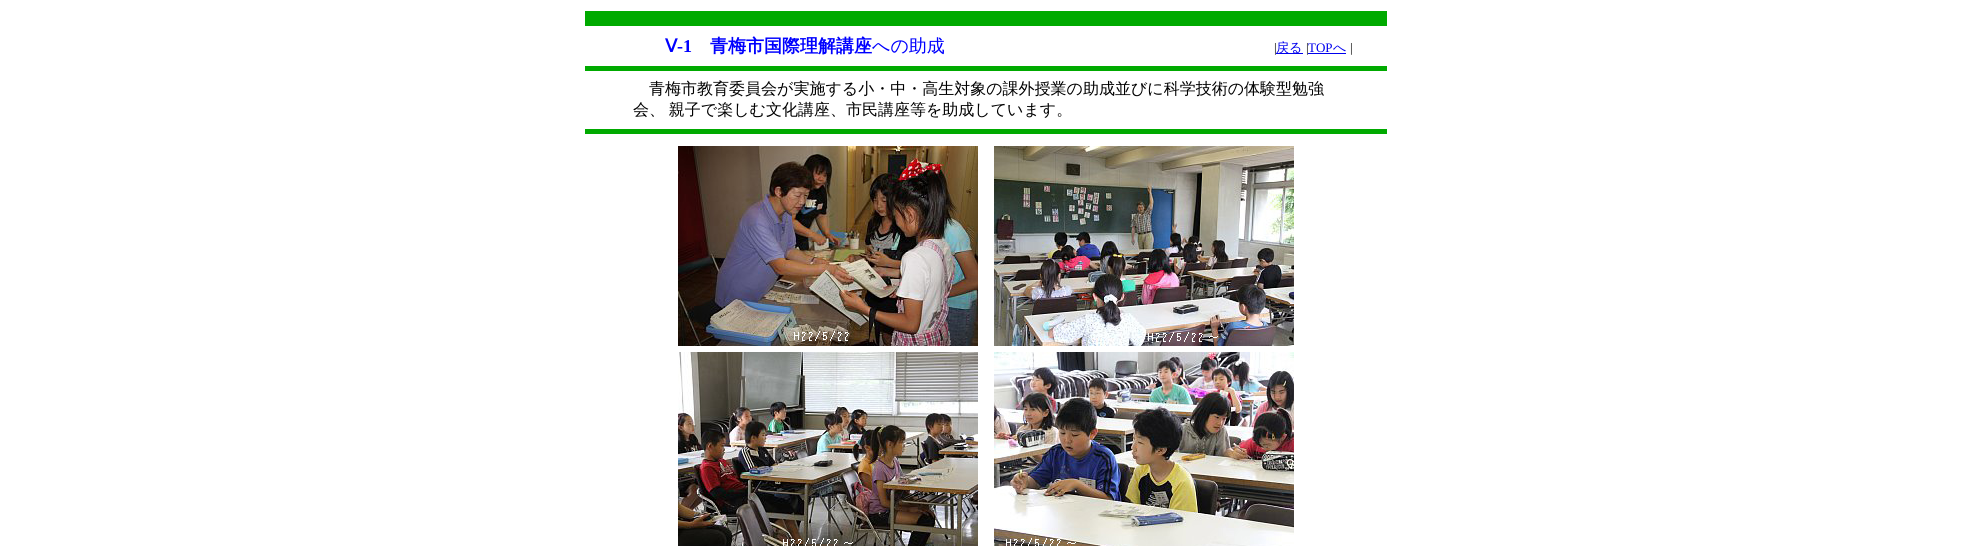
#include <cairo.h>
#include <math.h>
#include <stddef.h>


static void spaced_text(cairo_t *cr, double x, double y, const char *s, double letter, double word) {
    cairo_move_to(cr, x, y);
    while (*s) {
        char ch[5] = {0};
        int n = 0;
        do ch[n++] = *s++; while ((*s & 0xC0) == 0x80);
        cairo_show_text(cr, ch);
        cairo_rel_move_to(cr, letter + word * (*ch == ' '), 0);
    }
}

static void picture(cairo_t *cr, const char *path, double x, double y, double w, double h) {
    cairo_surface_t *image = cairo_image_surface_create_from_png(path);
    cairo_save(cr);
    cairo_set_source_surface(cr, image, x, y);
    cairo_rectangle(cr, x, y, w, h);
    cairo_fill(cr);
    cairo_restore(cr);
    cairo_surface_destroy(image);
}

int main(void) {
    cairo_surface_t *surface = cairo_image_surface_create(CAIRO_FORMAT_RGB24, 1972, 546);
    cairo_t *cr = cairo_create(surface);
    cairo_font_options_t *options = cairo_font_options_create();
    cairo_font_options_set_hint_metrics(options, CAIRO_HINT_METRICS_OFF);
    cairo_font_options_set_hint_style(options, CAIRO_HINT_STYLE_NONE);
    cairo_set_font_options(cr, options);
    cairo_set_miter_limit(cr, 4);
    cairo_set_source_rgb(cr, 1, 1, 1);
    cairo_paint(cr);
    cairo_set_source_rgb(cr, 0, 0.667, 0);
    cairo_rectangle(cr, 585, 11, 802, 15);
    cairo_fill(cr);
    cairo_select_font_face(cr, "DejaVu Sans", CAIRO_FONT_SLANT_NORMAL, CAIRO_FONT_WEIGHT_BOLD);
    cairo_set_font_size(cr, 18);
    cairo_set_source_rgb(cr, 0, 0, 1);
    cairo_move_to(cr, 665, 52);
    cairo_show_text(cr, "Ⅴ");
    cairo_select_font_face(cr, "Liberation Serif", CAIRO_FONT_SLANT_NORMAL, CAIRO_FONT_WEIGHT_BOLD);
    cairo_move_to(cr, 677, 52);
    cairo_show_text(cr, "-1");
    cairo_select_font_face(cr, "WenQuanYi Zen Hei", CAIRO_FONT_SLANT_NORMAL, CAIRO_FONT_WEIGHT_BOLD);
    cairo_move_to(cr, 710, 52);
    cairo_show_text(cr, "青梅市国際理解講座");
    cairo_select_font_face(cr, "WenQuanYi Zen Hei Medium", CAIRO_FONT_SLANT_NORMAL, CAIRO_FONT_WEIGHT_NORMAL);
    cairo_move_to(cr, 872, 52);
    cairo_show_text(cr, "への助成");
    cairo_select_font_face(cr, "Liberation Serif", CAIRO_FONT_SLANT_NORMAL, CAIRO_FONT_WEIGHT_NORMAL);
    cairo_set_font_size(cr, 13);
    cairo_set_source_rgb(cr, 0, 0, 0);
    cairo_move_to(cr, 1274, 52);
    cairo_show_text(cr, "|");
    cairo_set_source_rgb(cr, 0, 0, 0.933);
    cairo_rectangle(cr, 1276, 53, 27, 1);
    cairo_fill(cr);
    cairo_select_font_face(cr, "WenQuanYi Zen Hei Medium", CAIRO_FONT_SLANT_NORMAL, CAIRO_FONT_WEIGHT_NORMAL);
    cairo_move_to(cr, 1276, 52);
    cairo_show_text(cr, "戻る");
    cairo_select_font_face(cr, "Liberation Serif", CAIRO_FONT_SLANT_NORMAL, CAIRO_FONT_WEIGHT_NORMAL);
    cairo_set_source_rgb(cr, 0, 0, 0);
    cairo_move_to(cr, 1306, 52);
    cairo_show_text(cr, "|");
    cairo_set_source_rgb(cr, 0, 0, 0.933);
    cairo_rectangle(cr, 1308, 53, 38, 1);
    cairo_fill(cr);
    cairo_move_to(cr, 1308, 52);
    cairo_show_text(cr, "TOP");
    cairo_select_font_face(cr, "WenQuanYi Zen Hei Medium", CAIRO_FONT_SLANT_NORMAL, CAIRO_FONT_WEIGHT_NORMAL);
    cairo_move_to(cr, 1333, 52);
    cairo_show_text(cr, "へ");
    cairo_select_font_face(cr, "Liberation Serif", CAIRO_FONT_SLANT_NORMAL, CAIRO_FONT_WEIGHT_NORMAL);
    cairo_set_source_rgb(cr, 0, 0, 0);
    cairo_move_to(cr, 1350, 52);
    cairo_show_text(cr, "|");
    cairo_set_source_rgb(cr, 0, 0.667, 0);
    cairo_rectangle(cr, 585, 66, 802, 5);
    cairo_fill(cr);
    cairo_select_font_face(cr, "WenQuanYi Zen Hei Medium", CAIRO_FONT_SLANT_NORMAL, CAIRO_FONT_WEIGHT_NORMAL);
    cairo_set_font_size(cr, 16);
    cairo_set_source_rgb(cr, 0, 0, 0);
    cairo_move_to(cr, 649, 94);
    cairo_show_text(cr, "青梅市教育委員会が実施する小・中・高生対象の課外授業の助成並びに科学技術の体験型勉強");
    spaced_text(cr, 633, 115, "会、 親子で楽しむ文化講座、市民講座等を助成しています。", 0, -1);
    cairo_set_source_rgb(cr, 0, 0.667, 0);
    cairo_rectangle(cr, 585, 129, 802, 5);
    cairo_fill(cr);
    picture(cr, "img1.png", 678, 146, 300, 200);
    picture(cr, "img2.png", 994, 146, 300, 200);
    picture(cr, "img3.png", 678, 352, 300, 194);
    picture(cr, "img4.png", 994, 352, 300, 194);
    cairo_surface_write_to_png(surface, "page.png");
    cairo_font_options_destroy(options);
    cairo_destroy(cr);
    cairo_surface_destroy(surface);
    return 0;
}
